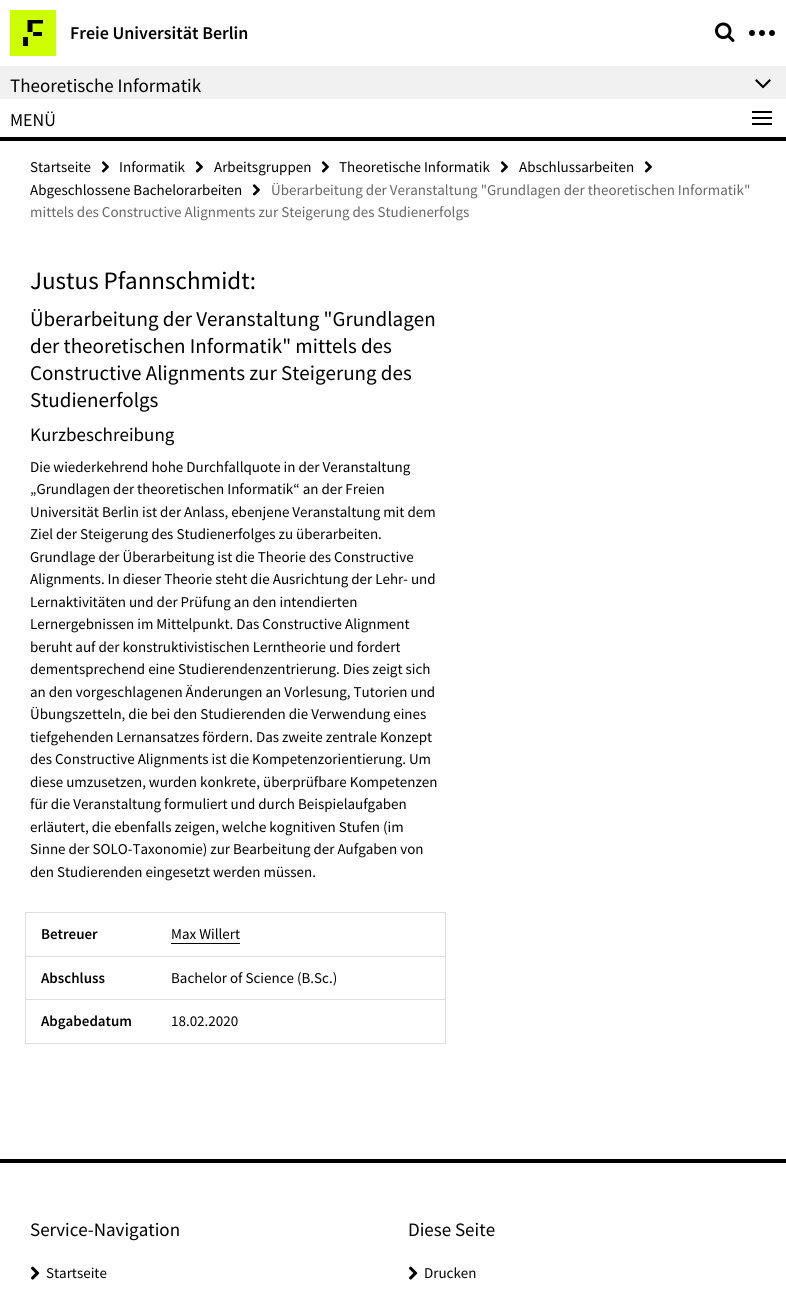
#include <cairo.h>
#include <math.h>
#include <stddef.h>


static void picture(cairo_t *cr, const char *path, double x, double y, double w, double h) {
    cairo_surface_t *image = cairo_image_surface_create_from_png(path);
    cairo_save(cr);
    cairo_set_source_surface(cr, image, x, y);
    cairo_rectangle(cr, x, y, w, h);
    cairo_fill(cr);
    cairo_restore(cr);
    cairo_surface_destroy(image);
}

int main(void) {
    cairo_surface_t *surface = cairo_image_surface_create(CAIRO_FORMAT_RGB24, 786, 1298);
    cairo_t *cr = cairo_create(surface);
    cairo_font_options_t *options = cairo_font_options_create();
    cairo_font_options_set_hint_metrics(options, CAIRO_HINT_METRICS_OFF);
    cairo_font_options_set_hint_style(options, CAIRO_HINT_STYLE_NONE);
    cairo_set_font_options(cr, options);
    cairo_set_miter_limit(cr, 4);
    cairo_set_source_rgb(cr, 1, 1, 1);
    cairo_paint(cr);
    cairo_set_source_rgb(cr, 0.8, 1, 0);
    cairo_rectangle(cr, 10, 10, 46, 46);
    cairo_fill(cr);
    cairo_set_source_rgb(cr, 0, 0, 0);
    cairo_new_path(cr);
    cairo_move_to(cr, 27.5, 20);
    cairo_line_to(cr, 43, 20);
    cairo_line_to(cr, 43, 23.5);
    cairo_line_to(cr, 32.5, 23.5);
    cairo_line_to(cr, 32.5, 32);
    cairo_line_to(cr, 27.5, 32);
    cairo_close_path(cr);
    cairo_fill(cr);
    cairo_rectangle(cr, 33, 32, 9, 4);
    cairo_fill(cr);
    cairo_rectangle(cr, 23, 37, 5, 9);
    cairo_fill(cr);
    cairo_select_font_face(cr, "Source Sans Pro SemiBold", CAIRO_FONT_SLANT_NORMAL, CAIRO_FONT_WEIGHT_NORMAL);
    cairo_set_font_size(cr, 18);
    cairo_move_to(cr, 70, 39);
    cairo_show_text(cr, "Freie Universität Berlin");
    picture(cr, "img1.png", 715, 22, 20, 20);
    cairo_arc(cr, 752, 33, 3, 0, 2 * M_PI);
    cairo_fill(cr);
    cairo_arc(cr, 762, 33, 3, 0, 2 * M_PI);
    cairo_fill(cr);
    cairo_arc(cr, 772, 33, 3, 0, 2 * M_PI);
    cairo_fill(cr);
    cairo_set_source_rgb(cr, 0.945, 0.945, 0.945);
    cairo_rectangle(cr, 0, 66, 786, 33);
    cairo_fill(cr);
    cairo_select_font_face(cr, "Source Sans Pro", CAIRO_FONT_SLANT_NORMAL, CAIRO_FONT_WEIGHT_NORMAL);
    cairo_set_font_size(cr, 19);
    cairo_set_source_rgb(cr, 0, 0, 0);
    cairo_move_to(cr, 10, 92);
    cairo_show_text(cr, "Theoretische Informatik");
    picture(cr, "img2.png", 755, 79, 16, 10);
    cairo_rectangle(cr, 0, 137, 786, 4);
    cairo_fill(cr);
    cairo_set_font_size(cr, 18);
    cairo_move_to(cr, 10, 126);
    cairo_show_text(cr, "MENÜ");
    cairo_rectangle(cr, 752, 111, 20, 2);
    cairo_fill(cr);
    cairo_rectangle(cr, 752, 117, 20, 2);
    cairo_fill(cr);
    cairo_rectangle(cr, 752, 123, 20, 2);
    cairo_fill(cr);
    cairo_set_font_size(cr, 15);
    cairo_move_to(cr, 30, 172);
    cairo_show_text(cr, "Startseite");
    picture(cr, "img3.png", 101, 161, 8, 12);
    cairo_move_to(cr, 119, 172);
    cairo_show_text(cr, "Informatik");
    picture(cr, "img3.png", 195, 161, 8, 12);
    cairo_move_to(cr, 214, 172);
    cairo_show_text(cr, "Arbeitsgruppen");
    picture(cr, "img3.png", 321, 161, 8, 12);
    cairo_move_to(cr, 339, 172);
    cairo_show_text(cr, "Theoretische Informatik");
    picture(cr, "img3.png", 500, 161, 8, 12);
    cairo_move_to(cr, 519, 172);
    cairo_show_text(cr, "Abschlussarbeiten");
    picture(cr, "img3.png", 644, 161, 8, 12);
    cairo_move_to(cr, 30, 195);
    cairo_show_text(cr, "Abgeschlossene Bachelorarbeiten");
    picture(cr, "img3.png", 252, 184, 8, 12);
    cairo_set_source_rgb(cr, 0.4, 0.4, 0.4);
    cairo_move_to(cr, 271, 195);
    cairo_show_text(cr, "Überarbeitung der Veranstaltung \"Grundlagen der theoretischen Informatik\"");
    cairo_move_to(cr, 30, 217);
    cairo_show_text(cr, "mittels des Constructive Alignments zur Steigerung des Studienerfolgs");
    cairo_set_font_size(cr, 25);
    cairo_set_source_rgb(cr, 0, 0, 0);
    cairo_move_to(cr, 30, 289);
    cairo_show_text(cr, "Justus Pfannschmidt:");
    cairo_set_font_size(cr, 21);
    cairo_move_to(cr, 30, 326);
    cairo_show_text(cr, "Überarbeitung der Veranstaltung \"Grundlagen");
    cairo_move_to(cr, 30, 353);
    cairo_show_text(cr, "der theoretischen Informatik\" mittels des");
    cairo_move_to(cr, 30, 380);
    cairo_show_text(cr, "Constructive Alignments zur Steigerung des");
    cairo_move_to(cr, 30, 407);
    cairo_show_text(cr, "Studienerfolgs");
    cairo_set_font_size(cr, 19);
    cairo_move_to(cr, 30, 441);
    cairo_show_text(cr, "Kurzbeschreibung");
    cairo_set_font_size(cr, 15);
    cairo_move_to(cr, 30, 472);
    cairo_show_text(cr, "Die wiederkehrend hohe Durchfallquote in der Veranstaltung");
    cairo_move_to(cr, 30, 494);
    cairo_show_text(cr, "„Grundlagen der theoretischen Informatik“ an der Freien");
    cairo_move_to(cr, 30, 517);
    cairo_show_text(cr, "Universität Berlin ist der Anlass, ebenjene Veranstaltung mit dem");
    cairo_move_to(cr, 30, 539);
    cairo_show_text(cr, "Ziel der Steigerung des Studienerfolges zu überarbeiten.");
    cairo_move_to(cr, 30, 562);
    cairo_show_text(cr, "Grundlage der Überarbeitung ist die Theorie des Constructive");
    cairo_move_to(cr, 30, 584);
    cairo_show_text(cr, "Alignments. In dieser Theorie steht die Ausrichtung der Lehr- und");
    cairo_move_to(cr, 30, 607);
    cairo_show_text(cr, "Lernaktivitäten und der Prüfung an den intendierten");
    cairo_move_to(cr, 30, 629);
    cairo_show_text(cr, "Lernergebnissen im Mittelpunkt. Das Constructive Alignment");
    cairo_move_to(cr, 30, 652);
    cairo_show_text(cr, "beruht auf der konstruktivistischen Lerntheorie und fordert");
    cairo_move_to(cr, 30, 674);
    cairo_show_text(cr, "dementsprechend eine Studierendenzentrierung. Dies zeigt sich");
    cairo_move_to(cr, 30, 697);
    cairo_show_text(cr, "an den vorgeschlagenen Änderungen an Vorlesung, Tutorien und");
    cairo_move_to(cr, 30, 719);
    cairo_show_text(cr, "Übungszetteln, die bei den Studierenden die Verwendung eines");
    cairo_move_to(cr, 30, 742);
    cairo_show_text(cr, "tiefgehenden Lernansatzes fördern. Das zweite zentrale Konzept");
    cairo_move_to(cr, 30, 764);
    cairo_show_text(cr, "des Constructive Alignments ist die Kompetenzorientierung. Um");
    cairo_move_to(cr, 30, 787);
    cairo_show_text(cr, "diese umzusetzen, wurden konkrete, überprüfbare Kompetenzen");
    cairo_move_to(cr, 30, 809);
    cairo_show_text(cr, "für die Veranstaltung formuliert und durch Beispielaufgaben");
    cairo_move_to(cr, 30, 832);
    cairo_show_text(cr, "erläutert, die ebenfalls zeigen, welche kognitiven Stufen (im");
    cairo_move_to(cr, 30, 854);
    cairo_show_text(cr, "Sinne der SOLO-Taxonomie) zur Bearbeitung der Aufgaben von");
    cairo_move_to(cr, 30, 877);
    cairo_show_text(cr, "den Studierenden eingesetzt werden müssen.");
    cairo_rectangle(cr, 25.5, 912.5, 420, 44);
    cairo_set_source_rgb(cr, 0.867, 0.867, 0.867);
    cairo_set_line_width(cr, 1);
    cairo_stroke(cr);
    cairo_select_font_face(cr, "Source Sans Pro SemiBold", CAIRO_FONT_SLANT_NORMAL, CAIRO_FONT_WEIGHT_NORMAL);
    cairo_set_source_rgb(cr, 0, 0, 0);
    cairo_move_to(cr, 41, 939);
    cairo_show_text(cr, "Betreuer");
    cairo_select_font_face(cr, "Source Sans Pro", CAIRO_FONT_SLANT_NORMAL, CAIRO_FONT_WEIGHT_NORMAL);
    cairo_move_to(cr, 171, 939);
    cairo_show_text(cr, "Max Willert");
    cairo_rectangle(cr, 171, 943, 69, 1);
    cairo_fill(cr);
    cairo_rectangle(cr, 25.5, 956.5, 420, 43);
    cairo_set_source_rgb(cr, 0.867, 0.867, 0.867);
    cairo_stroke(cr);
    cairo_select_font_face(cr, "Source Sans Pro SemiBold", CAIRO_FONT_SLANT_NORMAL, CAIRO_FONT_WEIGHT_NORMAL);
    cairo_set_source_rgb(cr, 0, 0, 0);
    cairo_move_to(cr, 41, 983);
    cairo_show_text(cr, "Abschluss");
    cairo_select_font_face(cr, "Source Sans Pro", CAIRO_FONT_SLANT_NORMAL, CAIRO_FONT_WEIGHT_NORMAL);
    cairo_move_to(cr, 171, 983);
    cairo_show_text(cr, "Bachelor of Science (B.Sc.)");
    cairo_rectangle(cr, 25.5, 999.5, 420, 44);
    cairo_set_source_rgb(cr, 0.867, 0.867, 0.867);
    cairo_stroke(cr);
    cairo_select_font_face(cr, "Source Sans Pro SemiBold", CAIRO_FONT_SLANT_NORMAL, CAIRO_FONT_WEIGHT_NORMAL);
    cairo_set_source_rgb(cr, 0, 0, 0);
    cairo_move_to(cr, 41, 1026);
    cairo_show_text(cr, "Abgabedatum");
    cairo_select_font_face(cr, "Source Sans Pro", CAIRO_FONT_SLANT_NORMAL, CAIRO_FONT_WEIGHT_NORMAL);
    cairo_move_to(cr, 171, 1026);
    cairo_show_text(cr, "18.02.2020");
    cairo_rectangle(cr, 0, 1159, 786, 4);
    cairo_fill(cr);
    cairo_set_font_size(cr, 19);
    cairo_move_to(cr, 30, 1236);
    cairo_show_text(cr, "Service-Navigation");
    picture(cr, "img4.png", 31, 1266, 9, 14);
    cairo_set_font_size(cr, 15);
    cairo_move_to(cr, 46, 1278);
    cairo_show_text(cr, "Startseite");
    cairo_set_font_size(cr, 19);
    cairo_move_to(cr, 408, 1236);
    cairo_show_text(cr, "Diese Seite");
    picture(cr, "img4.png", 409, 1266, 9, 14);
    cairo_set_font_size(cr, 15);
    cairo_move_to(cr, 424, 1278);
    cairo_show_text(cr, "Drucken");
    cairo_surface_write_to_png(surface, "page.png");
    cairo_font_options_destroy(options);
    cairo_destroy(cr);
    cairo_surface_destroy(surface);
    return 0;
}
